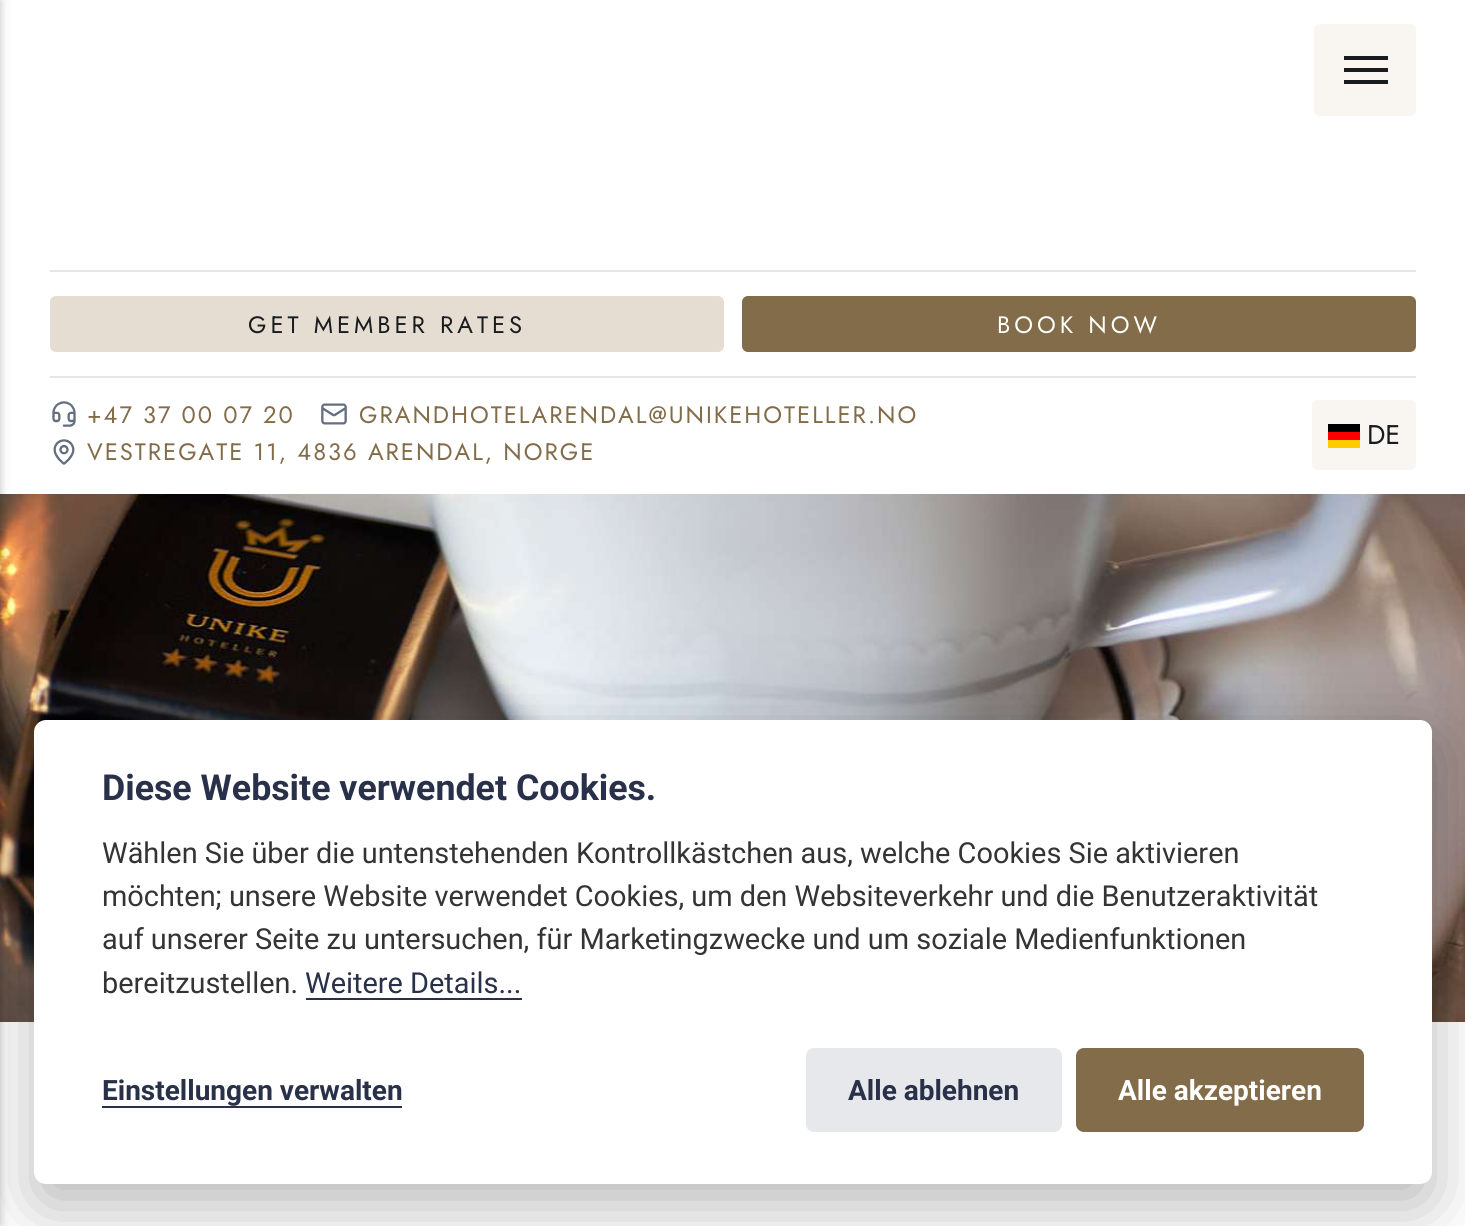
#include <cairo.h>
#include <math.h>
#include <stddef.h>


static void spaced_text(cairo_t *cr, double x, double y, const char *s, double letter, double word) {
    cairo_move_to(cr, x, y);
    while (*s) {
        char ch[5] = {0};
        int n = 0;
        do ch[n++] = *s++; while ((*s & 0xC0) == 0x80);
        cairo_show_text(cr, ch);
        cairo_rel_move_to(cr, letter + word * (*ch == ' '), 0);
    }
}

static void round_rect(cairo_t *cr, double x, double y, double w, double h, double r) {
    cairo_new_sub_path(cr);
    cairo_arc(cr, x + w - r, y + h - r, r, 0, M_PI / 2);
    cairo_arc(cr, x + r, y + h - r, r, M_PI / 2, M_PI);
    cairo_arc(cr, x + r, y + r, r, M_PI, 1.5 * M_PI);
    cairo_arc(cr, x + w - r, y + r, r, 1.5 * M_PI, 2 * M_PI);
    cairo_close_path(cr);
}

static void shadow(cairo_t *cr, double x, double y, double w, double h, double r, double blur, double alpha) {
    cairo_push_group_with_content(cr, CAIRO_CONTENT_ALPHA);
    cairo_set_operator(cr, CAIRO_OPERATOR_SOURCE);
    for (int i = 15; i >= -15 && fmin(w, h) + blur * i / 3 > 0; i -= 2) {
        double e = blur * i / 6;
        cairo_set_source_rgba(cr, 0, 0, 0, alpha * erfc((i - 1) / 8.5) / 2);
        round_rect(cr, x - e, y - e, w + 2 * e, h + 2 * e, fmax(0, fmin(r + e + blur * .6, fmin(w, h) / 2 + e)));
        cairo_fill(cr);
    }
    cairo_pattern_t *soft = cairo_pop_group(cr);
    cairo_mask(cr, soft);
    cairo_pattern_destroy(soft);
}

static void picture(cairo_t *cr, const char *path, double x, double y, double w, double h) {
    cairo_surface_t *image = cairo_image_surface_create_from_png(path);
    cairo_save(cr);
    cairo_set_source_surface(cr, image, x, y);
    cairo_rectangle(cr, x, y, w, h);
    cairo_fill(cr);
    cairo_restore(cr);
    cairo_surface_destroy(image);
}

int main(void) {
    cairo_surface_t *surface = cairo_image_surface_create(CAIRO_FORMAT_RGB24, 1465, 1226);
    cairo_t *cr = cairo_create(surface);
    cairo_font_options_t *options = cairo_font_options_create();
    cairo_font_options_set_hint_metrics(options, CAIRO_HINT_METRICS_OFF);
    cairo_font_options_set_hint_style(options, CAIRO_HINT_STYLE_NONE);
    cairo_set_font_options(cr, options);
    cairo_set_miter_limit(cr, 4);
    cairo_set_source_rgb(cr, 1, 1, 1);
    cairo_paint(cr);
    picture(cr, "img5.png", 0, 494, 1465, 528);
    cairo_set_source_rgb(cr, 0, 0, 0);
    shadow(cr, -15, 0, 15, 1226, 0, 5, 0.25);
    cairo_set_source_rgb(cr, 0.973, 0.961, 0.949);
    round_rect(cr, 1314, 24, 102, 92, 6);
    cairo_fill(cr);
    cairo_set_source_rgb(cr, 0.098, 0.106, 0.122);
    cairo_rectangle(cr, 1344, 68, 44, 4);
    cairo_fill(cr);
    cairo_rectangle(cr, 1344, 56, 44, 4);
    cairo_fill(cr);
    cairo_rectangle(cr, 1344, 80, 44, 4);
    cairo_fill(cr);
    cairo_set_source_rgb(cr, 0.902, 0.902, 0.902);
    cairo_rectangle(cr, 50, 270, 1366, 2);
    cairo_fill(cr);
    cairo_set_source_rgb(cr, 0.898, 0.867, 0.82);
    round_rect(cr, 50, 296, 674, 56, 6);
    cairo_fill(cr);
    cairo_select_font_face(cr, "Jost", CAIRO_FONT_SLANT_NORMAL, CAIRO_FONT_WEIGHT_NORMAL);
    cairo_set_font_size(cr, 23.75);
    cairo_set_source_rgb(cr, 0.098, 0.106, 0.122);
    spaced_text(cr, 248, 333, "GET MEMBER RATES", 4, 0);
    cairo_set_source_rgb(cr, 0.514, 0.424, 0.286);
    round_rect(cr, 742, 296, 674, 56, 6);
    cairo_fill(cr);
    cairo_set_source_rgb(cr, 1, 1, 1);
    spaced_text(cr, 997, 333, "BOOK NOW", 4, 0);
    cairo_set_source_rgb(cr, 0.902, 0.902, 0.902);
    cairo_rectangle(cr, 50, 376, 1366, 2);
    cairo_fill(cr);
    picture(cr, "img1.png", 52, 401, 24, 26);
    cairo_set_source_rgb(cr, 0.514, 0.424, 0.286);
    spaced_text(cr, 87, 423, "+47 37 00 07 20", 2, 0);
    picture(cr, "img2.png", 321, 403, 26, 22);
    spaced_text(cr, 359, 423, "GRANDHOTELARENDAL@UNIKEHOTELLER.NO", 2, 0);
    picture(cr, "img3.png", 53, 439, 22, 26);
    spaced_text(cr, 87, 460, "VESTREGATE 11, 4836 ARENDAL, NORGE", 2, 0);
    cairo_set_source_rgb(cr, 0.973, 0.961, 0.949);
    round_rect(cr, 1312, 400, 104, 70, 6);
    cairo_fill(cr);
    picture(cr, "img4.png", 1328, 424, 32, 24);
    cairo_set_font_size(cr, 27);
    cairo_set_source_rgb(cr, 0.098, 0.106, 0.122);
    cairo_move_to(cr, 1367, 444);
    cairo_show_text(cr, "DE");
    cairo_set_source_rgb(cr, 0.008, 0.008, 0.012);
    shadow(cr, 34, 742, 1398, 464, 12, 32, 0.28);
    cairo_set_source_rgb(cr, 1, 1, 1);
    round_rect(cr, 34, 720, 1398, 464, 12);
    cairo_fill(cr);
    cairo_select_font_face(cr, "Roboto", CAIRO_FONT_SLANT_NORMAL, CAIRO_FONT_WEIGHT_BOLD);
    cairo_set_font_size(cr, 35.75);
    cairo_set_source_rgb(cr, 0.157, 0.192, 0.286);
    cairo_move_to(cr, 102, 800);
    cairo_show_text(cr, "Diese Website verwendet Cookies.");
    cairo_select_font_face(cr, "Roboto", CAIRO_FONT_SLANT_NORMAL, CAIRO_FONT_WEIGHT_NORMAL);
    cairo_set_font_size(cr, 28.9);
    cairo_set_source_rgb(cr, 0.204, 0.204, 0.208);
    cairo_move_to(cr, 102, 863);
    cairo_show_text(cr, "Wählen Sie über die untenstehenden Kontrollkästchen aus, welche Cookies Sie aktivieren");
    cairo_move_to(cr, 102, 906);
    cairo_show_text(cr, "möchten; unsere Website verwendet Cookies, um den Websiteverkehr und die Benutzeraktivität");
    cairo_move_to(cr, 102, 949);
    cairo_show_text(cr, "auf unserer Seite zu untersuchen, für Marketingzwecke und um soziale Medienfunktionen");
    cairo_move_to(cr, 102, 993);
    cairo_show_text(cr, "bereitzustellen.");
    cairo_set_source_rgb(cr, 0.157, 0.192, 0.286);
    cairo_move_to(cr, 305, 993);
    cairo_show_text(cr, "Weitere Details...");
    cairo_rectangle(cr, 306, 998, 216, 2);
    cairo_fill(cr);
    cairo_select_font_face(cr, "Roboto", CAIRO_FONT_SLANT_NORMAL, CAIRO_FONT_WEIGHT_BOLD);
    cairo_set_font_size(cr, 28);
    cairo_move_to(cr, 102, 1100);
    cairo_show_text(cr, "Einstellungen verwalten");
    cairo_rectangle(cr, 102, 1106, 300, 2);
    cairo_fill(cr);
    cairo_set_source_rgb(cr, 0.906, 0.91, 0.918);
    round_rect(cr, 806, 1048, 256, 84, 8);
    cairo_fill(cr);
    cairo_set_source_rgb(cr, 0.157, 0.192, 0.286);
    cairo_move_to(cr, 848, 1100);
    cairo_show_text(cr, "Alle ablehnen");
    cairo_set_source_rgb(cr, 0.514, 0.424, 0.286);
    round_rect(cr, 1076, 1048, 288, 84, 8);
    cairo_fill(cr);
    cairo_set_source_rgb(cr, 1, 1, 1);
    cairo_move_to(cr, 1118, 1100);
    cairo_show_text(cr, "Alle akzeptieren");
    cairo_surface_write_to_png(surface, "page.png");
    cairo_font_options_destroy(options);
    cairo_destroy(cr);
    cairo_surface_destroy(surface);
    return 0;
}
